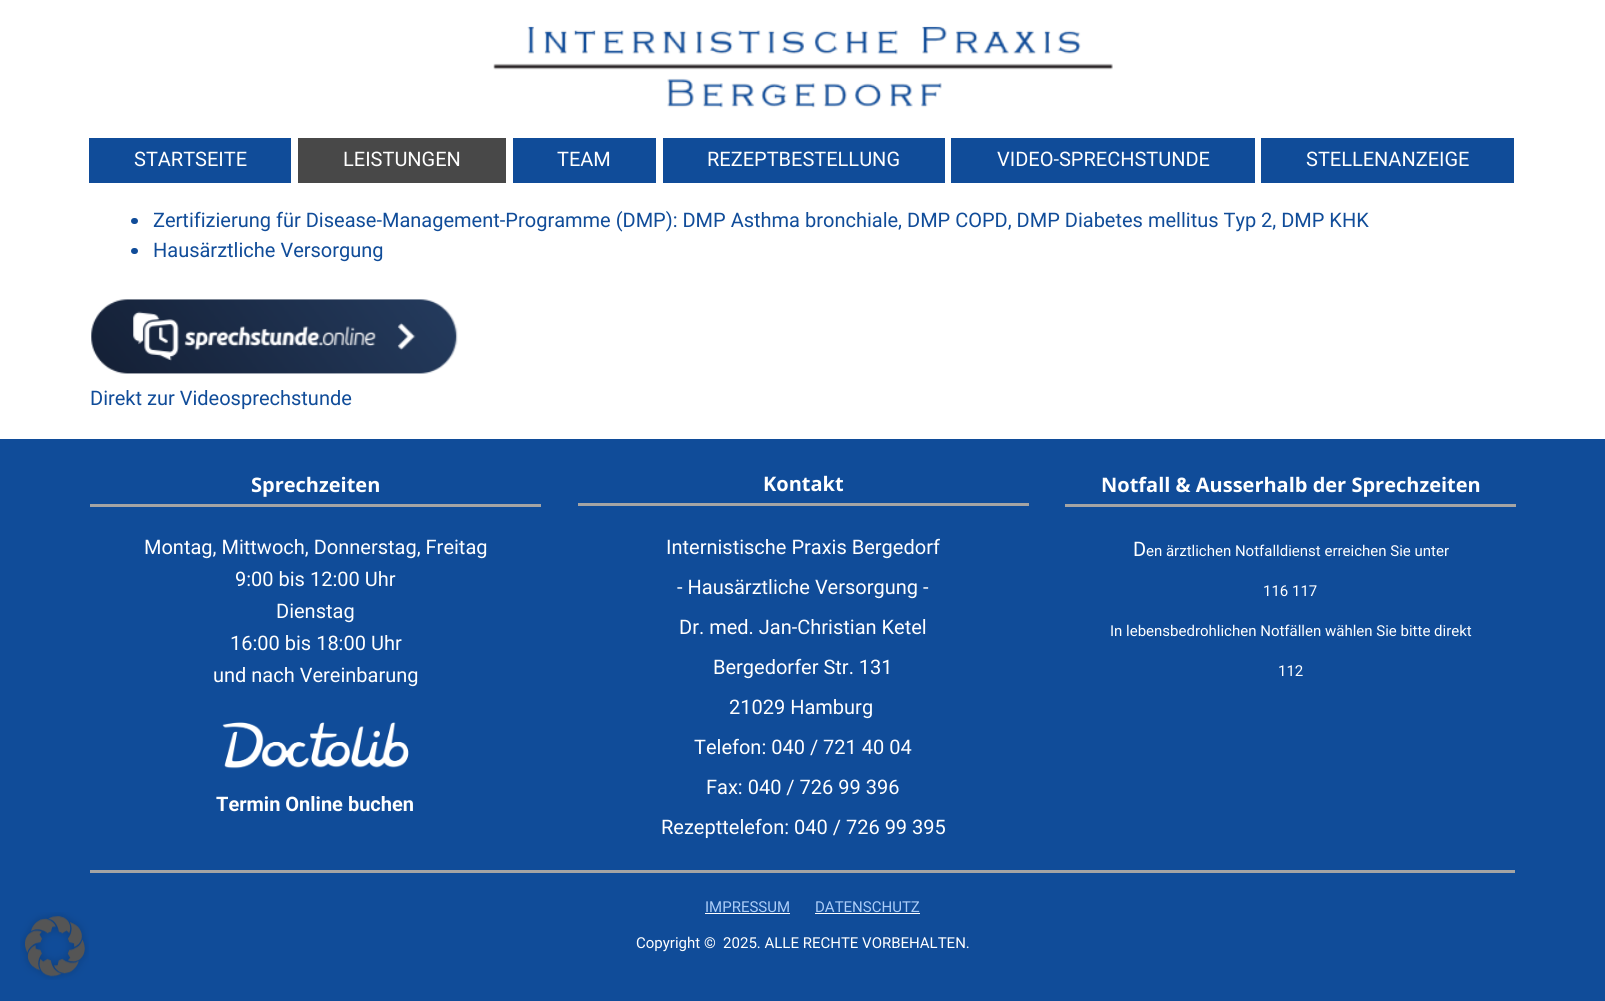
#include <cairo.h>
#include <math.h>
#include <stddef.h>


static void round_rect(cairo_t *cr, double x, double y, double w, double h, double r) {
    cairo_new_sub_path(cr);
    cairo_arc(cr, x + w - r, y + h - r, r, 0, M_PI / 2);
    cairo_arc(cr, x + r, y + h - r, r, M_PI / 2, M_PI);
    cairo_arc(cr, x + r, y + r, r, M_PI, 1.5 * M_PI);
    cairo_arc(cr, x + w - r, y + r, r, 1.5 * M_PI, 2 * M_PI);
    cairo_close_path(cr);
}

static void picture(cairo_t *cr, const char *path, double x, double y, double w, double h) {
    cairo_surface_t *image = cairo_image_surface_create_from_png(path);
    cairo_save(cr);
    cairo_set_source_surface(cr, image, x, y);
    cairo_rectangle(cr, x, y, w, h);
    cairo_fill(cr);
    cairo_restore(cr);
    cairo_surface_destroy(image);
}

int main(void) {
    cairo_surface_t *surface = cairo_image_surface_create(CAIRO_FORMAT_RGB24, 1605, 1001);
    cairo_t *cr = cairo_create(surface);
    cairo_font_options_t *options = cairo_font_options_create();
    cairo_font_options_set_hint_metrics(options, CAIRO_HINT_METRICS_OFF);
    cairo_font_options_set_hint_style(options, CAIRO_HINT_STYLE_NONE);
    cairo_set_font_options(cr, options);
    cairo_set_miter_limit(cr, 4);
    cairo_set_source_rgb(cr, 1, 1, 1);
    cairo_paint(cr);
    picture(cr, "img1.png", 493, 26, 620, 82);
    cairo_set_source_rgb(cr, 0.063, 0.298, 0.6);
    cairo_rectangle(cr, 89, 138, 202, 45);
    cairo_fill(cr);
    cairo_select_font_face(cr, "Roboto", CAIRO_FONT_SLANT_NORMAL, CAIRO_FONT_WEIGHT_NORMAL);
    cairo_set_font_size(cr, 20);
    cairo_set_source_rgb(cr, 1, 1, 1);
    cairo_move_to(cr, 134, 166);
    cairo_show_text(cr, "STARTSEITE");
    cairo_set_source_rgb(cr, 0.282, 0.282, 0.282);
    cairo_rectangle(cr, 298, 138, 208, 45);
    cairo_fill(cr);
    cairo_set_source_rgb(cr, 1, 1, 1);
    cairo_move_to(cr, 343, 166);
    cairo_show_text(cr, "LEISTUNGEN");
    cairo_set_source_rgb(cr, 0.063, 0.298, 0.6);
    cairo_rectangle(cr, 513, 138, 143, 45);
    cairo_fill(cr);
    cairo_set_source_rgb(cr, 1, 1, 1);
    cairo_move_to(cr, 557, 166);
    cairo_show_text(cr, "TEAM");
    cairo_set_source_rgb(cr, 0.063, 0.298, 0.6);
    cairo_rectangle(cr, 663, 138, 282, 45);
    cairo_fill(cr);
    cairo_set_source_rgb(cr, 1, 1, 1);
    cairo_move_to(cr, 707, 166);
    cairo_show_text(cr, "REZEPTBESTELLUNG");
    cairo_set_source_rgb(cr, 0.063, 0.298, 0.6);
    cairo_rectangle(cr, 951, 138, 304, 45);
    cairo_fill(cr);
    cairo_set_source_rgb(cr, 1, 1, 1);
    cairo_move_to(cr, 997, 166);
    cairo_show_text(cr, "VIDEO-SPRECHSTUNDE");
    cairo_set_source_rgb(cr, 0.063, 0.298, 0.6);
    cairo_rectangle(cr, 1261, 138, 253, 45);
    cairo_fill(cr);
    cairo_set_source_rgb(cr, 1, 1, 1);
    cairo_move_to(cr, 1306, 166);
    cairo_show_text(cr, "STELLENANZEIGE");
    cairo_set_source_rgb(cr, 0.063, 0.298, 0.6);
    round_rect(cr, 131, 218, 7, 6, 3);
    cairo_fill(cr);
    cairo_move_to(cr, 153, 227);
    cairo_show_text(cr, "Zertifizierung für Disease-Management-Programme (DMP): DMP Asthma bronchiale, DMP COPD, DMP Diabetes mellitus Typ 2, DMP KHK");
    round_rect(cr, 131, 248, 7, 6, 3);
    cairo_fill(cr);
    cairo_move_to(cr, 153, 257);
    cairo_show_text(cr, "Hausärztliche Versorgung");
    picture(cr, "img2.png", 91, 299, 367, 75);
    cairo_move_to(cr, 90, 405);
    cairo_show_text(cr, "Direkt zur Videosprechstunde");
    cairo_rectangle(cr, 0, 439, 1605, 562);
    cairo_fill(cr);
    picture(cr, "img3.png", 20, 912, 69, 68);
    cairo_set_source_rgb(cr, 0.643, 0.643, 0.643);
    cairo_rectangle(cr, 90, 504, 451, 3);
    cairo_fill(cr);
    cairo_select_font_face(cr, "Open Sans", CAIRO_FONT_SLANT_NORMAL, CAIRO_FONT_WEIGHT_BOLD);
    cairo_set_source_rgb(cr, 1, 1, 1);
    cairo_move_to(cr, 251, 492);
    cairo_show_text(cr, "Sprechzeiten");
    cairo_select_font_face(cr, "Roboto", CAIRO_FONT_SLANT_NORMAL, CAIRO_FONT_WEIGHT_NORMAL);
    cairo_move_to(cr, 144, 554);
    cairo_show_text(cr, "Montag, Mittwoch, Donnerstag, Freitag");
    cairo_move_to(cr, 235, 586);
    cairo_show_text(cr, "9:00 bis 12:00 Uhr");
    cairo_move_to(cr, 276, 618);
    cairo_show_text(cr, "Dienstag");
    cairo_move_to(cr, 230, 650);
    cairo_show_text(cr, "16:00 bis 18:00 Uhr");
    cairo_move_to(cr, 213, 682);
    cairo_show_text(cr, "und nach Vereinbarung");
    picture(cr, "img4.png", 222, 722, 187, 47);
    cairo_select_font_face(cr, "Roboto", CAIRO_FONT_SLANT_NORMAL, CAIRO_FONT_WEIGHT_BOLD);
    cairo_move_to(cr, 216, 811);
    cairo_show_text(cr, "Termin Online buchen");
    cairo_set_source_rgb(cr, 0.643, 0.643, 0.643);
    cairo_rectangle(cr, 578, 503, 451, 3);
    cairo_fill(cr);
    cairo_select_font_face(cr, "Open Sans", CAIRO_FONT_SLANT_NORMAL, CAIRO_FONT_WEIGHT_BOLD);
    cairo_set_source_rgb(cr, 1, 1, 1);
    cairo_move_to(cr, 763, 491);
    cairo_show_text(cr, "Kontakt");
    cairo_select_font_face(cr, "Roboto", CAIRO_FONT_SLANT_NORMAL, CAIRO_FONT_WEIGHT_NORMAL);
    cairo_move_to(cr, 666, 554);
    cairo_show_text(cr, "Internistische Praxis Bergedorf");
    cairo_move_to(cr, 677, 594);
    cairo_show_text(cr, "- Hausärztliche Versorgung -");
    cairo_move_to(cr, 679, 634);
    cairo_show_text(cr, "Dr. med. Jan-Christian Ketel");
    cairo_move_to(cr, 713, 674);
    cairo_show_text(cr, "Bergedorfer Str. 131");
    cairo_move_to(cr, 729, 714);
    cairo_show_text(cr, "21029 Hamburg");
    cairo_move_to(cr, 694, 754);
    cairo_show_text(cr, "Telefon: 040 / 721 40 04");
    cairo_move_to(cr, 706, 794);
    cairo_show_text(cr, "Fax: 040 / 726 99 396");
    cairo_move_to(cr, 661, 834);
    cairo_show_text(cr, "Rezepttelefon: 040 / 726 99 395");
    cairo_set_source_rgb(cr, 0.643, 0.643, 0.643);
    cairo_rectangle(cr, 1065, 504, 451, 3);
    cairo_fill(cr);
    cairo_select_font_face(cr, "Open Sans", CAIRO_FONT_SLANT_NORMAL, CAIRO_FONT_WEIGHT_BOLD);
    cairo_set_source_rgb(cr, 1, 1, 1);
    cairo_move_to(cr, 1101, 492);
    cairo_show_text(cr, "Notfall & Ausserhalb der Sprechzeiten");
    cairo_select_font_face(cr, "Roboto", CAIRO_FONT_SLANT_NORMAL, CAIRO_FONT_WEIGHT_NORMAL);
    cairo_move_to(cr, 1133, 556);
    cairo_show_text(cr, "D");
    cairo_set_font_size(cr, 15);
    cairo_move_to(cr, 1146, 556);
    cairo_show_text(cr, "en ärztlichen Notfalldienst erreichen Sie unter");
    cairo_move_to(cr, 1263, 596);
    cairo_show_text(cr, "116 117");
    cairo_move_to(cr, 1110, 636);
    cairo_show_text(cr, "In lebensbedrohlichen Notfällen wählen Sie bitte direkt");
    cairo_move_to(cr, 1278, 676);
    cairo_show_text(cr, "112");
    cairo_set_source_rgb(cr, 0.643, 0.643, 0.643);
    cairo_rectangle(cr, 90, 870, 1425, 3);
    cairo_fill(cr);
    cairo_set_source_rgb(cr, 0.667, 0.8, 0.969);
    cairo_move_to(cr, 705, 912);
    cairo_show_text(cr, "IMPRESSUM");
    cairo_set_source_rgb(cr, 1, 1, 1);
    cairo_rectangle(cr, 705, 913, 85, 1);
    cairo_fill(cr);
    cairo_set_source_rgb(cr, 0.667, 0.8, 0.969);
    cairo_move_to(cr, 815, 912);
    cairo_show_text(cr, "DATENSCHUTZ");
    cairo_set_source_rgb(cr, 1, 1, 1);
    cairo_rectangle(cr, 815, 913, 105, 1);
    cairo_fill(cr);
    cairo_move_to(cr, 636, 948);
    cairo_show_text(cr, "Copyright ©  2025. ALLE RECHTE VORBEHALTEN.");
    cairo_surface_write_to_png(surface, "page.png");
    cairo_font_options_destroy(options);
    cairo_destroy(cr);
    cairo_surface_destroy(surface);
    return 0;
}
